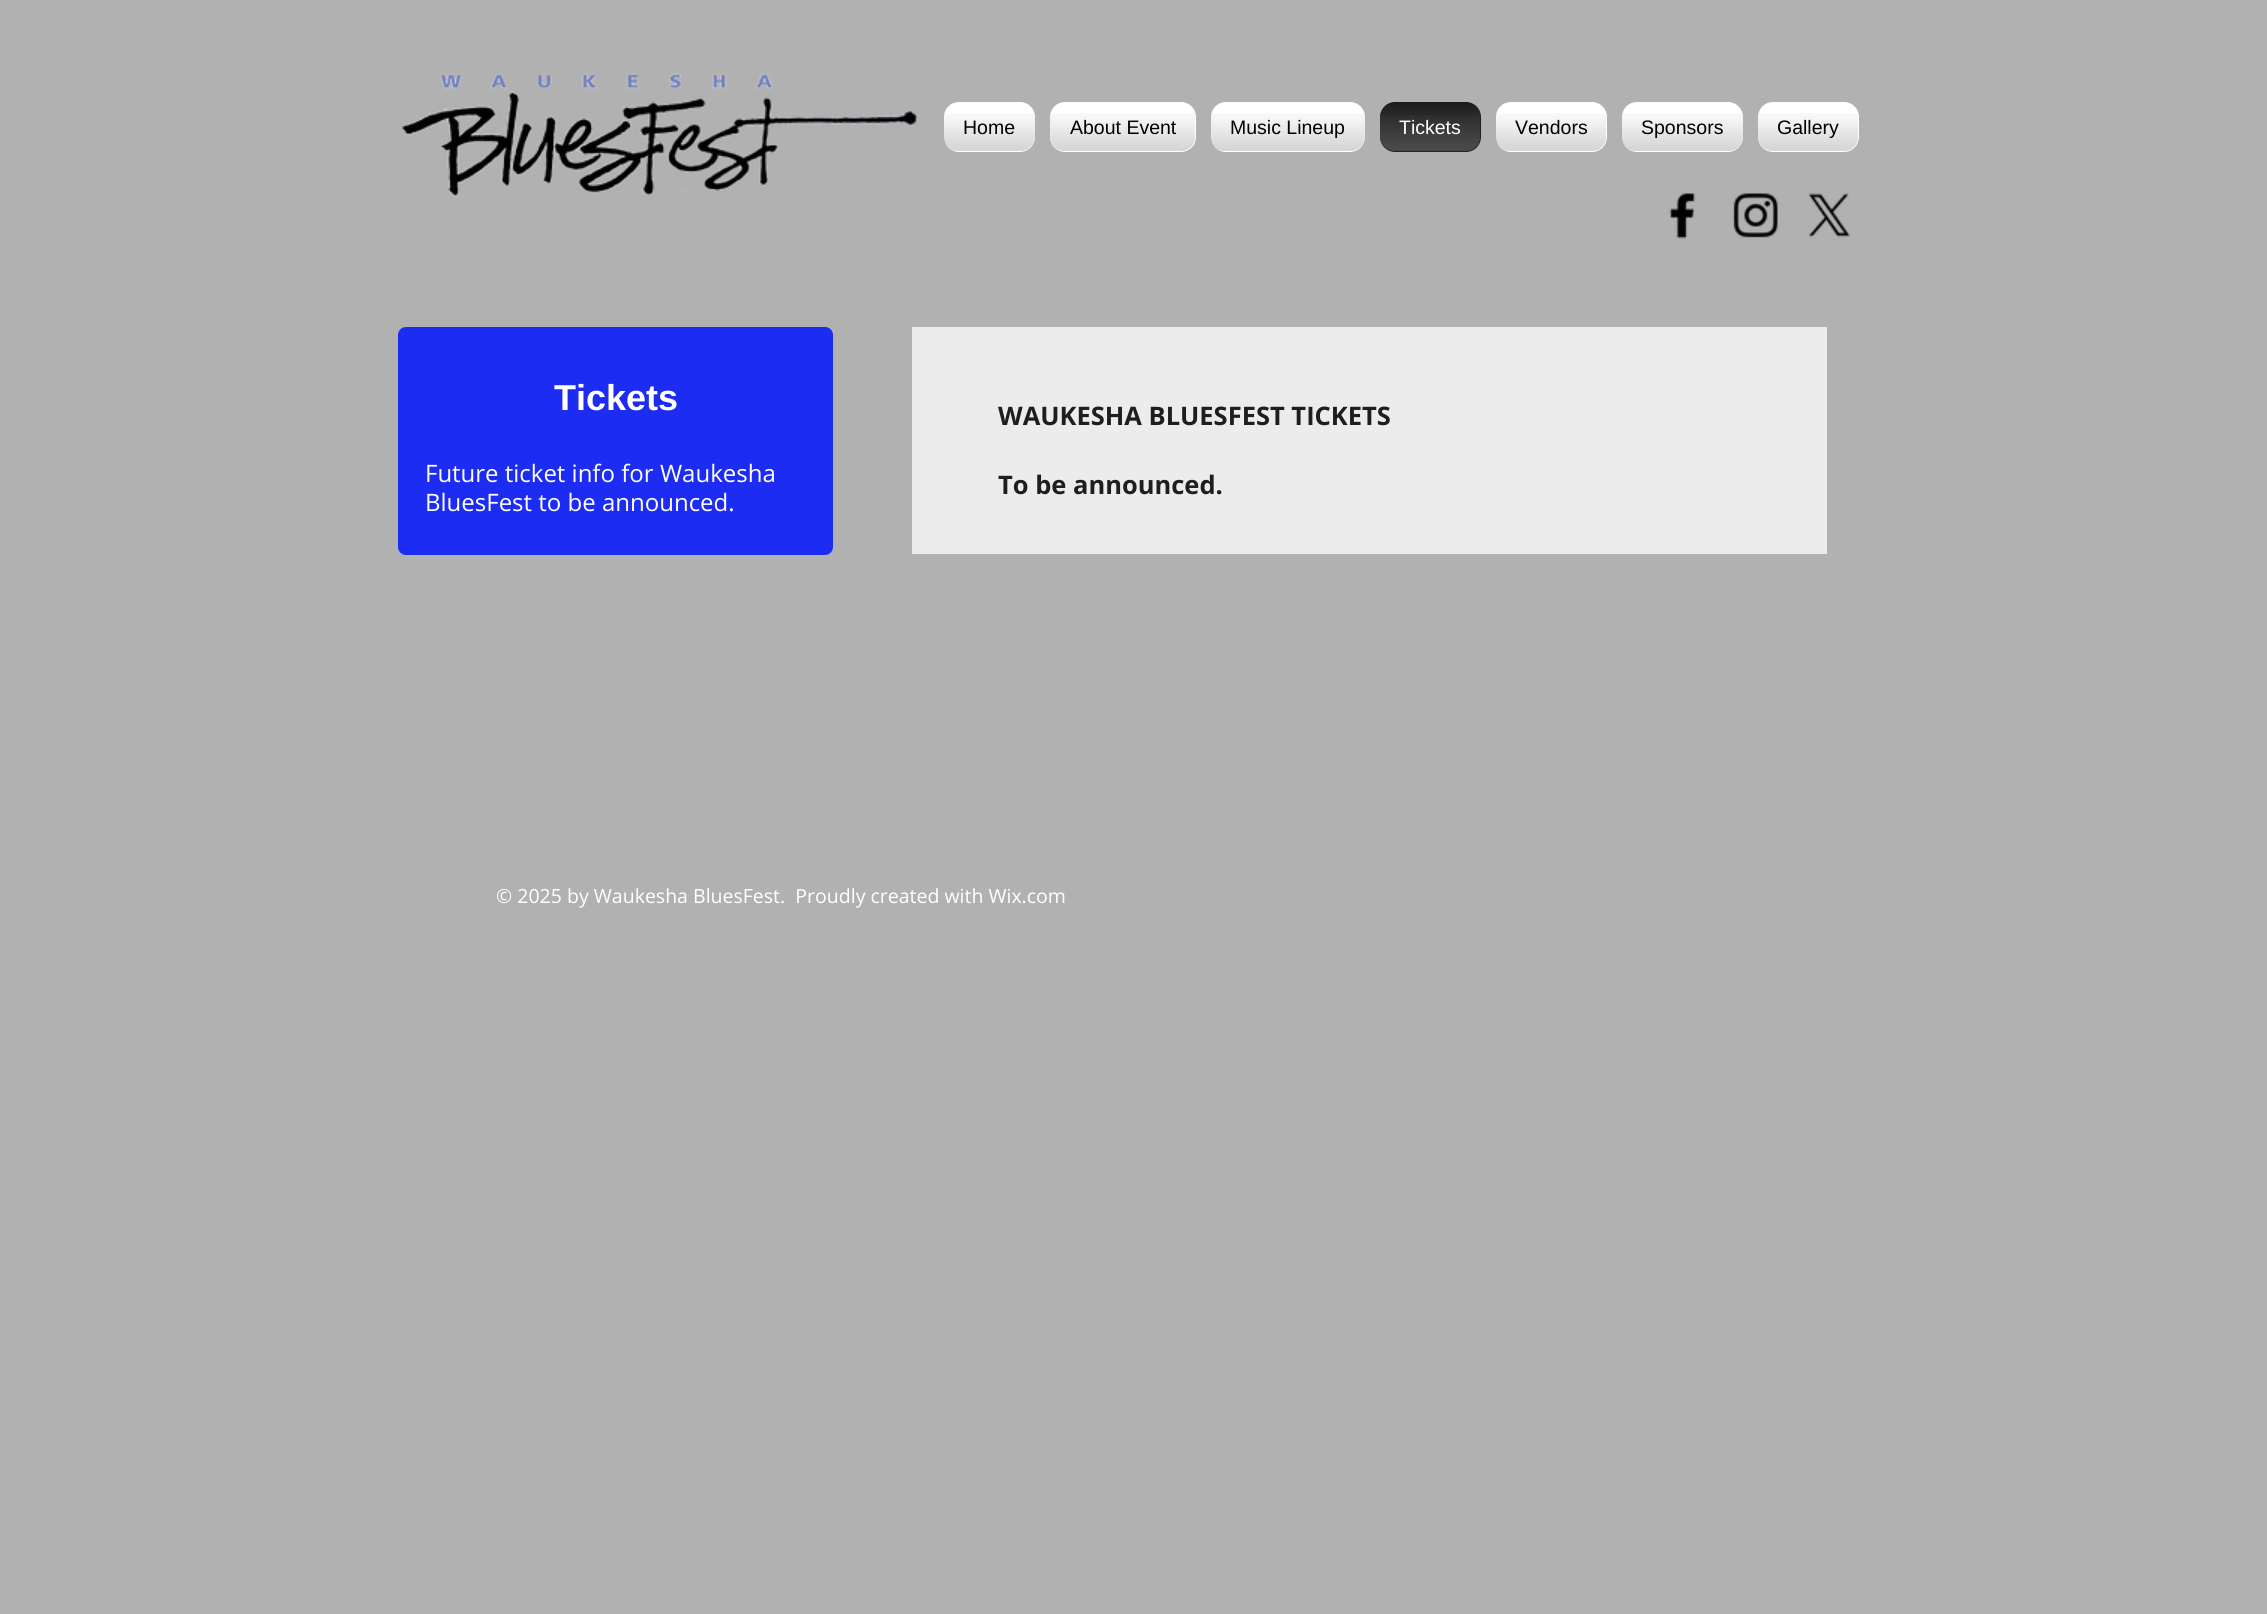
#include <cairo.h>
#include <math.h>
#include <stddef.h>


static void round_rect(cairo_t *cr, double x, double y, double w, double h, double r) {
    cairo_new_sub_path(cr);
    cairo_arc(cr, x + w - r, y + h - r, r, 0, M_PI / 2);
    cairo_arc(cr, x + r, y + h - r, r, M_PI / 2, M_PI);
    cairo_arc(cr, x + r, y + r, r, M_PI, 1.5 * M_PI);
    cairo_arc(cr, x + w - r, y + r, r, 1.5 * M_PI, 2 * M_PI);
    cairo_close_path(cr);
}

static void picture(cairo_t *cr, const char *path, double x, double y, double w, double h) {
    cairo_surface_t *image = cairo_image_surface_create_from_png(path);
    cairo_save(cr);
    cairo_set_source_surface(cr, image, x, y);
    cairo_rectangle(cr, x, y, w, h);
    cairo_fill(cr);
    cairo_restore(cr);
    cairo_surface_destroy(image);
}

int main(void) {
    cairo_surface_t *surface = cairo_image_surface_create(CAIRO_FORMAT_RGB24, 2267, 1614);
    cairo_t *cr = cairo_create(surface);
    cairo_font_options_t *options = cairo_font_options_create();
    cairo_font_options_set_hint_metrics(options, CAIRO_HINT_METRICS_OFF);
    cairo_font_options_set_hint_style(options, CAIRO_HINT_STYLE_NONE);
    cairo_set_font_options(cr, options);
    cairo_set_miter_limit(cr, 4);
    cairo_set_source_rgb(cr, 0.698, 0.694, 0.694);
    cairo_paint(cr);
    picture(cr, "img1.png", 402, 73, 516, 124);
    cairo_set_source_rgb(cr, 1, 1, 1);
    round_rect(cr, 944, 102, 91, 50, 15);
    cairo_fill(cr);
    picture(cr, "img2.png", 944, 103, 9, 11);
    picture(cr, "img3.png", 944, 113, 91, 38);
    cairo_select_font_face(cr, "Liberation Sans", CAIRO_FONT_SLANT_NORMAL, CAIRO_FONT_WEIGHT_NORMAL);
    cairo_set_font_size(cr, 19.5);
    cairo_set_source_rgb(cr, 0, 0, 0);
    cairo_move_to(cr, 963, 134);
    cairo_show_text(cr, "Home");
    cairo_set_source_rgb(cr, 1, 1, 1);
    round_rect(cr, 1050, 102, 146, 50, 15);
    cairo_fill(cr);
    picture(cr, "img4.png", 1050, 113, 145, 38);
    cairo_set_source_rgb(cr, 0, 0, 0);
    cairo_move_to(cr, 1070, 134);
    cairo_show_text(cr, "About Event");
    cairo_set_source_rgb(cr, 1, 1, 1);
    round_rect(cr, 1211, 102, 154, 50, 15);
    cairo_fill(cr);
    picture(cr, "img2.png", 1211, 103, 9, 11);
    picture(cr, "img5.png", 1211, 113, 154, 38);
    cairo_set_source_rgb(cr, 0, 0, 0);
    cairo_move_to(cr, 1230, 134);
    cairo_show_text(cr, "Music Lineup");
    cairo_set_source_rgb(cr, 0.118, 0.118, 0.118);
    round_rect(cr, 1380, 102, 101, 50, 15);
    cairo_fill(cr);
    picture(cr, "img6.png", 1380, 102, 99, 13);
    picture(cr, "img7.png", 1380, 103, 100, 49);
    cairo_set_source_rgb(cr, 1, 1, 1);
    cairo_move_to(cr, 1399, 134);
    cairo_show_text(cr, "Tickets");
    round_rect(cr, 1496, 102, 111, 50, 15);
    cairo_fill(cr);
    picture(cr, "img2.png", 1496, 103, 9, 11);
    picture(cr, "img8.png", 1496, 113, 110, 38);
    cairo_set_source_rgb(cr, 0, 0, 0);
    cairo_move_to(cr, 1515, 134);
    cairo_show_text(cr, "Vendors");
    cairo_set_source_rgb(cr, 1, 1, 1);
    round_rect(cr, 1622, 102, 121, 50, 15);
    cairo_fill(cr);
    picture(cr, "img2.png", 1622, 103, 9, 11);
    picture(cr, "img9.png", 1622, 113, 121, 38);
    cairo_set_source_rgb(cr, 0, 0, 0);
    cairo_move_to(cr, 1641, 134);
    cairo_show_text(cr, "Sponsors");
    cairo_set_source_rgb(cr, 1, 1, 1);
    round_rect(cr, 1758, 102, 101, 50, 15);
    cairo_fill(cr);
    picture(cr, "img10.png", 1758, 113, 100, 38);
    cairo_set_source_rgb(cr, 0, 0, 0);
    cairo_move_to(cr, 1777, 134);
    cairo_show_text(cr, "Gallery");
    picture(cr, "img11.png", 1669, 193, 27, 46);
    picture(cr, "img12.png", 1733, 193, 45, 45);
    picture(cr, "img13.png", 1808, 193, 42, 45);
    cairo_set_source_rgb(cr, 0.114, 0.173, 0.953);
    round_rect(cr, 398, 327, 435, 228, 8);
    cairo_fill(cr);
    cairo_select_font_face(cr, "Liberation Sans", CAIRO_FONT_SLANT_NORMAL, CAIRO_FONT_WEIGHT_BOLD);
    cairo_set_font_size(cr, 36);
    cairo_set_source_rgb(cr, 1, 1, 1);
    cairo_move_to(cr, 554, 410);
    cairo_show_text(cr, "Tickets");
    cairo_select_font_face(cr, "Open Sans", CAIRO_FONT_SLANT_NORMAL, CAIRO_FONT_WEIGHT_NORMAL);
    cairo_set_font_size(cr, 24);
    cairo_move_to(cr, 425, 482);
    cairo_show_text(cr, "Future ticket info for Waukesha");
    cairo_move_to(cr, 425, 511);
    cairo_show_text(cr, "BluesFest to be announced.");
    cairo_set_source_rgb(cr, 0.925, 0.922, 0.922);
    cairo_rectangle(cr, 912, 327, 915, 227);
    cairo_fill(cr);
    cairo_select_font_face(cr, "Open Sans", CAIRO_FONT_SLANT_NORMAL, CAIRO_FONT_WEIGHT_BOLD);
    cairo_set_font_size(cr, 25.5);
    cairo_set_source_rgb(cr, 0.118, 0.118, 0.118);
    cairo_move_to(cr, 998, 425);
    cairo_show_text(cr, "WAUKESHA BLUESFEST TICKETS");
    cairo_move_to(cr, 998, 494);
    cairo_show_text(cr, "To be announced.");
    cairo_select_font_face(cr, "Open Sans", CAIRO_FONT_SLANT_NORMAL, CAIRO_FONT_WEIGHT_NORMAL);
    cairo_set_font_size(cr, 19.5);
    cairo_set_source_rgb(cr, 1, 1, 1);
    cairo_move_to(cr, 496, 903);
    cairo_show_text(cr, "© 2025 by Waukesha BluesFest.  Proudly created with Wix.com");
    cairo_surface_write_to_png(surface, "page.png");
    cairo_font_options_destroy(options);
    cairo_destroy(cr);
    cairo_surface_destroy(surface);
    return 0;
}
